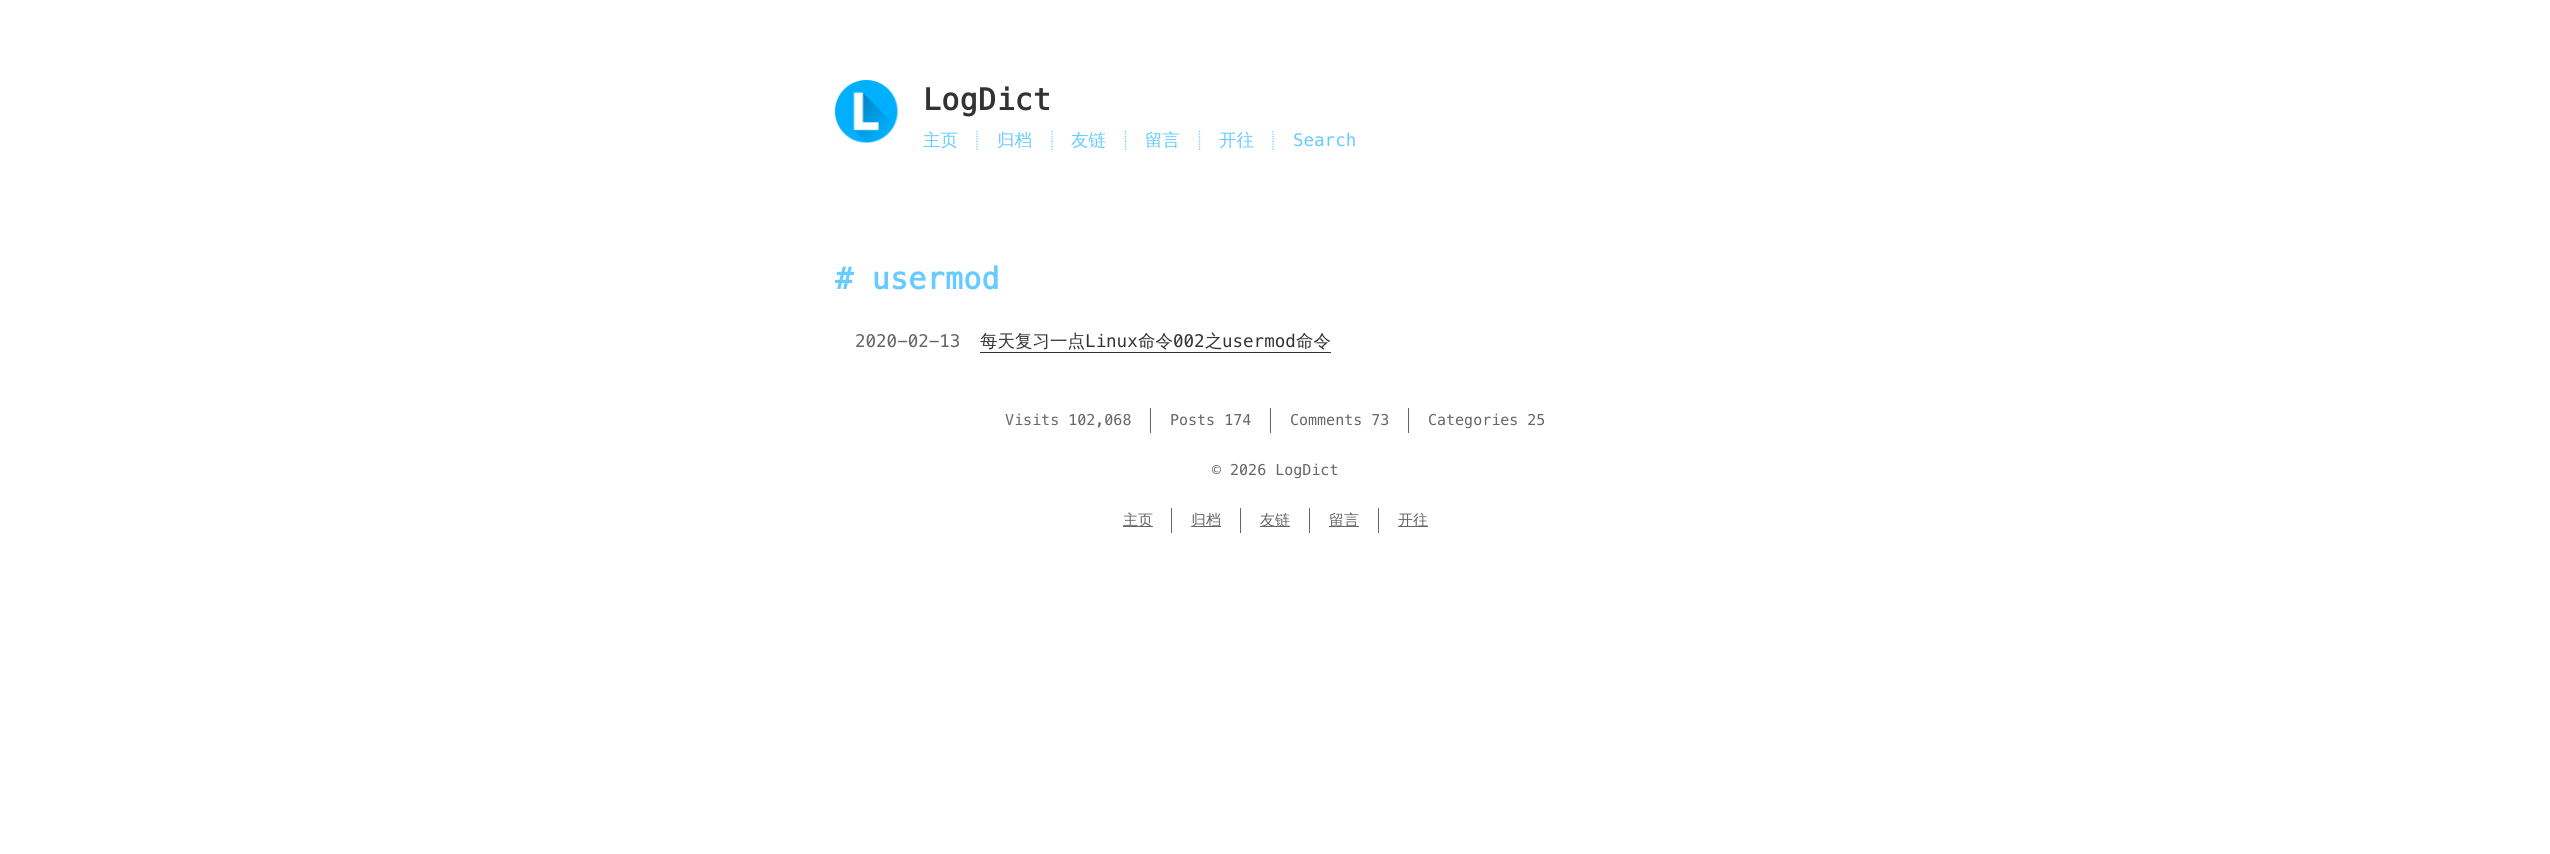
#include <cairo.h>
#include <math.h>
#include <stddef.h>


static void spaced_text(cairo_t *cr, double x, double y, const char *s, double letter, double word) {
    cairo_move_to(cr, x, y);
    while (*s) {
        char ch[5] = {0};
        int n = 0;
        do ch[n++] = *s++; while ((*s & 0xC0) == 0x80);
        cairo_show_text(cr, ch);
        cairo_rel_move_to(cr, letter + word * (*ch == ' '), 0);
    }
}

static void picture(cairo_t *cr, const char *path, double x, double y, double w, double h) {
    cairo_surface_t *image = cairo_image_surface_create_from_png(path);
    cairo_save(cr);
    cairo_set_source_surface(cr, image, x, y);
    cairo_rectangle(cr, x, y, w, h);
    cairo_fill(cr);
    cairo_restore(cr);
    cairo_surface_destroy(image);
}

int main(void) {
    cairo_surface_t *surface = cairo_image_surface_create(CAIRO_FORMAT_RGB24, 2550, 854);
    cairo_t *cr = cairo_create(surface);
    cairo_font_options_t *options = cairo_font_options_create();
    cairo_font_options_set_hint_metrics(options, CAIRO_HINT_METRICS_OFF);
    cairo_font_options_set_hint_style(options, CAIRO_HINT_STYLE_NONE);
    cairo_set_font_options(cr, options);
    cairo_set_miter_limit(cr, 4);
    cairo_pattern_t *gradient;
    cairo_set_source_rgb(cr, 1, 1, 1);
    cairo_paint(cr);
    picture(cr, "img1.png", 835, 80, 63, 63);
    cairo_select_font_face(cr, "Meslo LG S", CAIRO_FONT_SLANT_NORMAL, CAIRO_FONT_WEIGHT_BOLD);
    cairo_set_font_size(cr, 30);
    cairo_set_source_rgb(cr, 0.2, 0.2, 0.2);
    spaced_text(cr, 923, 110, "LogDict", 0.25, 0);
    cairo_new_path(cr);
    cairo_move_to(cr, 977, 131);
    cairo_line_to(cr, 977, 150);
    cairo_set_source_rgb(cr, 0.4, 0.8, 1);
    cairo_set_line_width(cr, 1.2);
    cairo_set_dash(cr, (double[]){1.25, 1.25}, 2, 0);
    cairo_stroke(cr);
    cairo_select_font_face(cr, "WenQuanYi Zen Hei Medium", CAIRO_FONT_SLANT_NORMAL, CAIRO_FONT_WEIGHT_NORMAL);
    cairo_set_font_size(cr, 17.5);
    cairo_move_to(cr, 923, 146);
    cairo_show_text(cr, "主页");
    cairo_new_path(cr);
    cairo_move_to(cr, 1052, 131);
    cairo_line_to(cr, 1052, 150);
    cairo_stroke(cr);
    cairo_move_to(cr, 997, 146);
    cairo_show_text(cr, "归档");
    cairo_new_path(cr);
    cairo_move_to(cr, 1125.5, 131);
    cairo_line_to(cr, 1125.5, 150);
    cairo_stroke(cr);
    cairo_move_to(cr, 1071, 146);
    cairo_show_text(cr, "友链");
    cairo_new_path(cr);
    cairo_move_to(cr, 1199.5, 131);
    cairo_line_to(cr, 1199.5, 150);
    cairo_stroke(cr);
    cairo_move_to(cr, 1145, 146);
    cairo_show_text(cr, "留言");
    cairo_new_path(cr);
    cairo_move_to(cr, 1273, 131);
    cairo_line_to(cr, 1273, 150);
    cairo_stroke(cr);
    cairo_move_to(cr, 1219, 146);
    cairo_show_text(cr, "开往");
    cairo_select_font_face(cr, "Meslo LG S", CAIRO_FONT_SLANT_NORMAL, CAIRO_FONT_WEIGHT_NORMAL);
    cairo_move_to(cr, 1293, 146);
    cairo_show_text(cr, "Search");
    cairo_select_font_face(cr, "Meslo LG S", CAIRO_FONT_SLANT_NORMAL, CAIRO_FONT_WEIGHT_BOLD);
    cairo_set_font_size(cr, 30);
    spaced_text(cr, 835, 289, "# usermod", 0.25, 0);
    cairo_select_font_face(cr, "Meslo LG S", CAIRO_FONT_SLANT_NORMAL, CAIRO_FONT_WEIGHT_NORMAL);
    cairo_set_font_size(cr, 17.5);
    cairo_set_source_rgb(cr, 0.4, 0.4, 0.4);
    cairo_move_to(cr, 855, 347);
    cairo_show_text(cr, "2020-02-13");
    cairo_select_font_face(cr, "WenQuanYi Zen Hei Medium", CAIRO_FONT_SLANT_NORMAL, CAIRO_FONT_WEIGHT_NORMAL);
    cairo_set_source_rgb(cr, 0.2, 0.2, 0.2);
    cairo_move_to(cr, 980, 347);
    cairo_show_text(cr, "每天复习一点");
    gradient = cairo_pattern_create_linear(1156, 345, 1156, 353);
    cairo_pattern_add_color_stop_rgba(gradient, 0, 1, 1, 1, 1);
    cairo_pattern_add_color_stop_rgba(gradient, 0.83, 1, 1, 1, 1);
    cairo_pattern_add_color_stop_rgba(gradient, 0.83, 0.2, 0.2, 0.2, 1);
    cairo_pattern_add_color_stop_rgba(gradient, 1, 0.2, 0.2, 0.2, 1);
    cairo_set_source(cr, gradient);
    cairo_pattern_destroy(gradient);
    cairo_rectangle(cr, 980, 352, 351, 1);
    cairo_fill(cr);
    cairo_select_font_face(cr, "Meslo LG S", CAIRO_FONT_SLANT_NORMAL, CAIRO_FONT_WEIGHT_NORMAL);
    cairo_set_source_rgb(cr, 0.2, 0.2, 0.2);
    cairo_move_to(cr, 1085, 347);
    cairo_show_text(cr, "Linux");
    cairo_select_font_face(cr, "WenQuanYi Zen Hei Medium", CAIRO_FONT_SLANT_NORMAL, CAIRO_FONT_WEIGHT_NORMAL);
    cairo_move_to(cr, 1138, 347);
    cairo_show_text(cr, "命令");
    cairo_select_font_face(cr, "Meslo LG S", CAIRO_FONT_SLANT_NORMAL, CAIRO_FONT_WEIGHT_NORMAL);
    cairo_move_to(cr, 1173, 347);
    cairo_show_text(cr, "002");
    cairo_select_font_face(cr, "WenQuanYi Zen Hei Medium", CAIRO_FONT_SLANT_NORMAL, CAIRO_FONT_WEIGHT_NORMAL);
    cairo_move_to(cr, 1205, 347);
    cairo_show_text(cr, "之");
    cairo_select_font_face(cr, "Meslo LG S", CAIRO_FONT_SLANT_NORMAL, CAIRO_FONT_WEIGHT_NORMAL);
    cairo_move_to(cr, 1222, 347);
    cairo_show_text(cr, "usermod");
    cairo_select_font_face(cr, "WenQuanYi Zen Hei Medium", CAIRO_FONT_SLANT_NORMAL, CAIRO_FONT_WEIGHT_NORMAL);
    cairo_move_to(cr, 1296, 347);
    cairo_show_text(cr, "命令");
    cairo_set_source_rgb(cr, 0.4, 0.4, 0.4);
    cairo_rectangle(cr, 1150, 408, 1, 25);
    cairo_fill(cr);
    cairo_select_font_face(cr, "Meslo LG S", CAIRO_FONT_SLANT_NORMAL, CAIRO_FONT_WEIGHT_NORMAL);
    cairo_set_font_size(cr, 15);
    cairo_move_to(cr, 1005, 425);
    cairo_show_text(cr, "Visits 102,068");
    cairo_rectangle(cr, 1270, 408, 1, 25);
    cairo_fill(cr);
    cairo_move_to(cr, 1170, 425);
    cairo_show_text(cr, "Posts 174");
    cairo_rectangle(cr, 1408, 408, 1, 25);
    cairo_fill(cr);
    cairo_move_to(cr, 1290, 425);
    cairo_show_text(cr, "Comments 73");
    cairo_move_to(cr, 1428, 425);
    cairo_show_text(cr, "Categories 25");
    cairo_move_to(cr, 1212, 475);
    cairo_show_text(cr, "© 2026 LogDict");
    cairo_rectangle(cr, 1171, 508, 1, 25);
    cairo_fill(cr);
    cairo_rectangle(cr, 1123, 526, 30, 1);
    cairo_fill(cr);
    cairo_select_font_face(cr, "WenQuanYi Zen Hei Medium", CAIRO_FONT_SLANT_NORMAL, CAIRO_FONT_WEIGHT_NORMAL);
    cairo_move_to(cr, 1123, 525);
    cairo_show_text(cr, "主页");
    cairo_rectangle(cr, 1240, 508, 1, 25);
    cairo_fill(cr);
    cairo_rectangle(cr, 1191, 526, 30, 1);
    cairo_fill(cr);
    cairo_move_to(cr, 1191, 525);
    cairo_show_text(cr, "归档");
    cairo_rectangle(cr, 1309, 508, 1, 25);
    cairo_fill(cr);
    cairo_rectangle(cr, 1260, 526, 30, 1);
    cairo_fill(cr);
    cairo_move_to(cr, 1260, 525);
    cairo_show_text(cr, "友链");
    cairo_rectangle(cr, 1378, 508, 1, 25);
    cairo_fill(cr);
    cairo_rectangle(cr, 1329, 526, 30, 1);
    cairo_fill(cr);
    cairo_move_to(cr, 1329, 525);
    cairo_show_text(cr, "留言");
    cairo_rectangle(cr, 1398, 526, 30, 1);
    cairo_fill(cr);
    cairo_move_to(cr, 1398, 525);
    cairo_show_text(cr, "开往");
    cairo_surface_write_to_png(surface, "page.png");
    cairo_font_options_destroy(options);
    cairo_destroy(cr);
    cairo_surface_destroy(surface);
    return 0;
}
